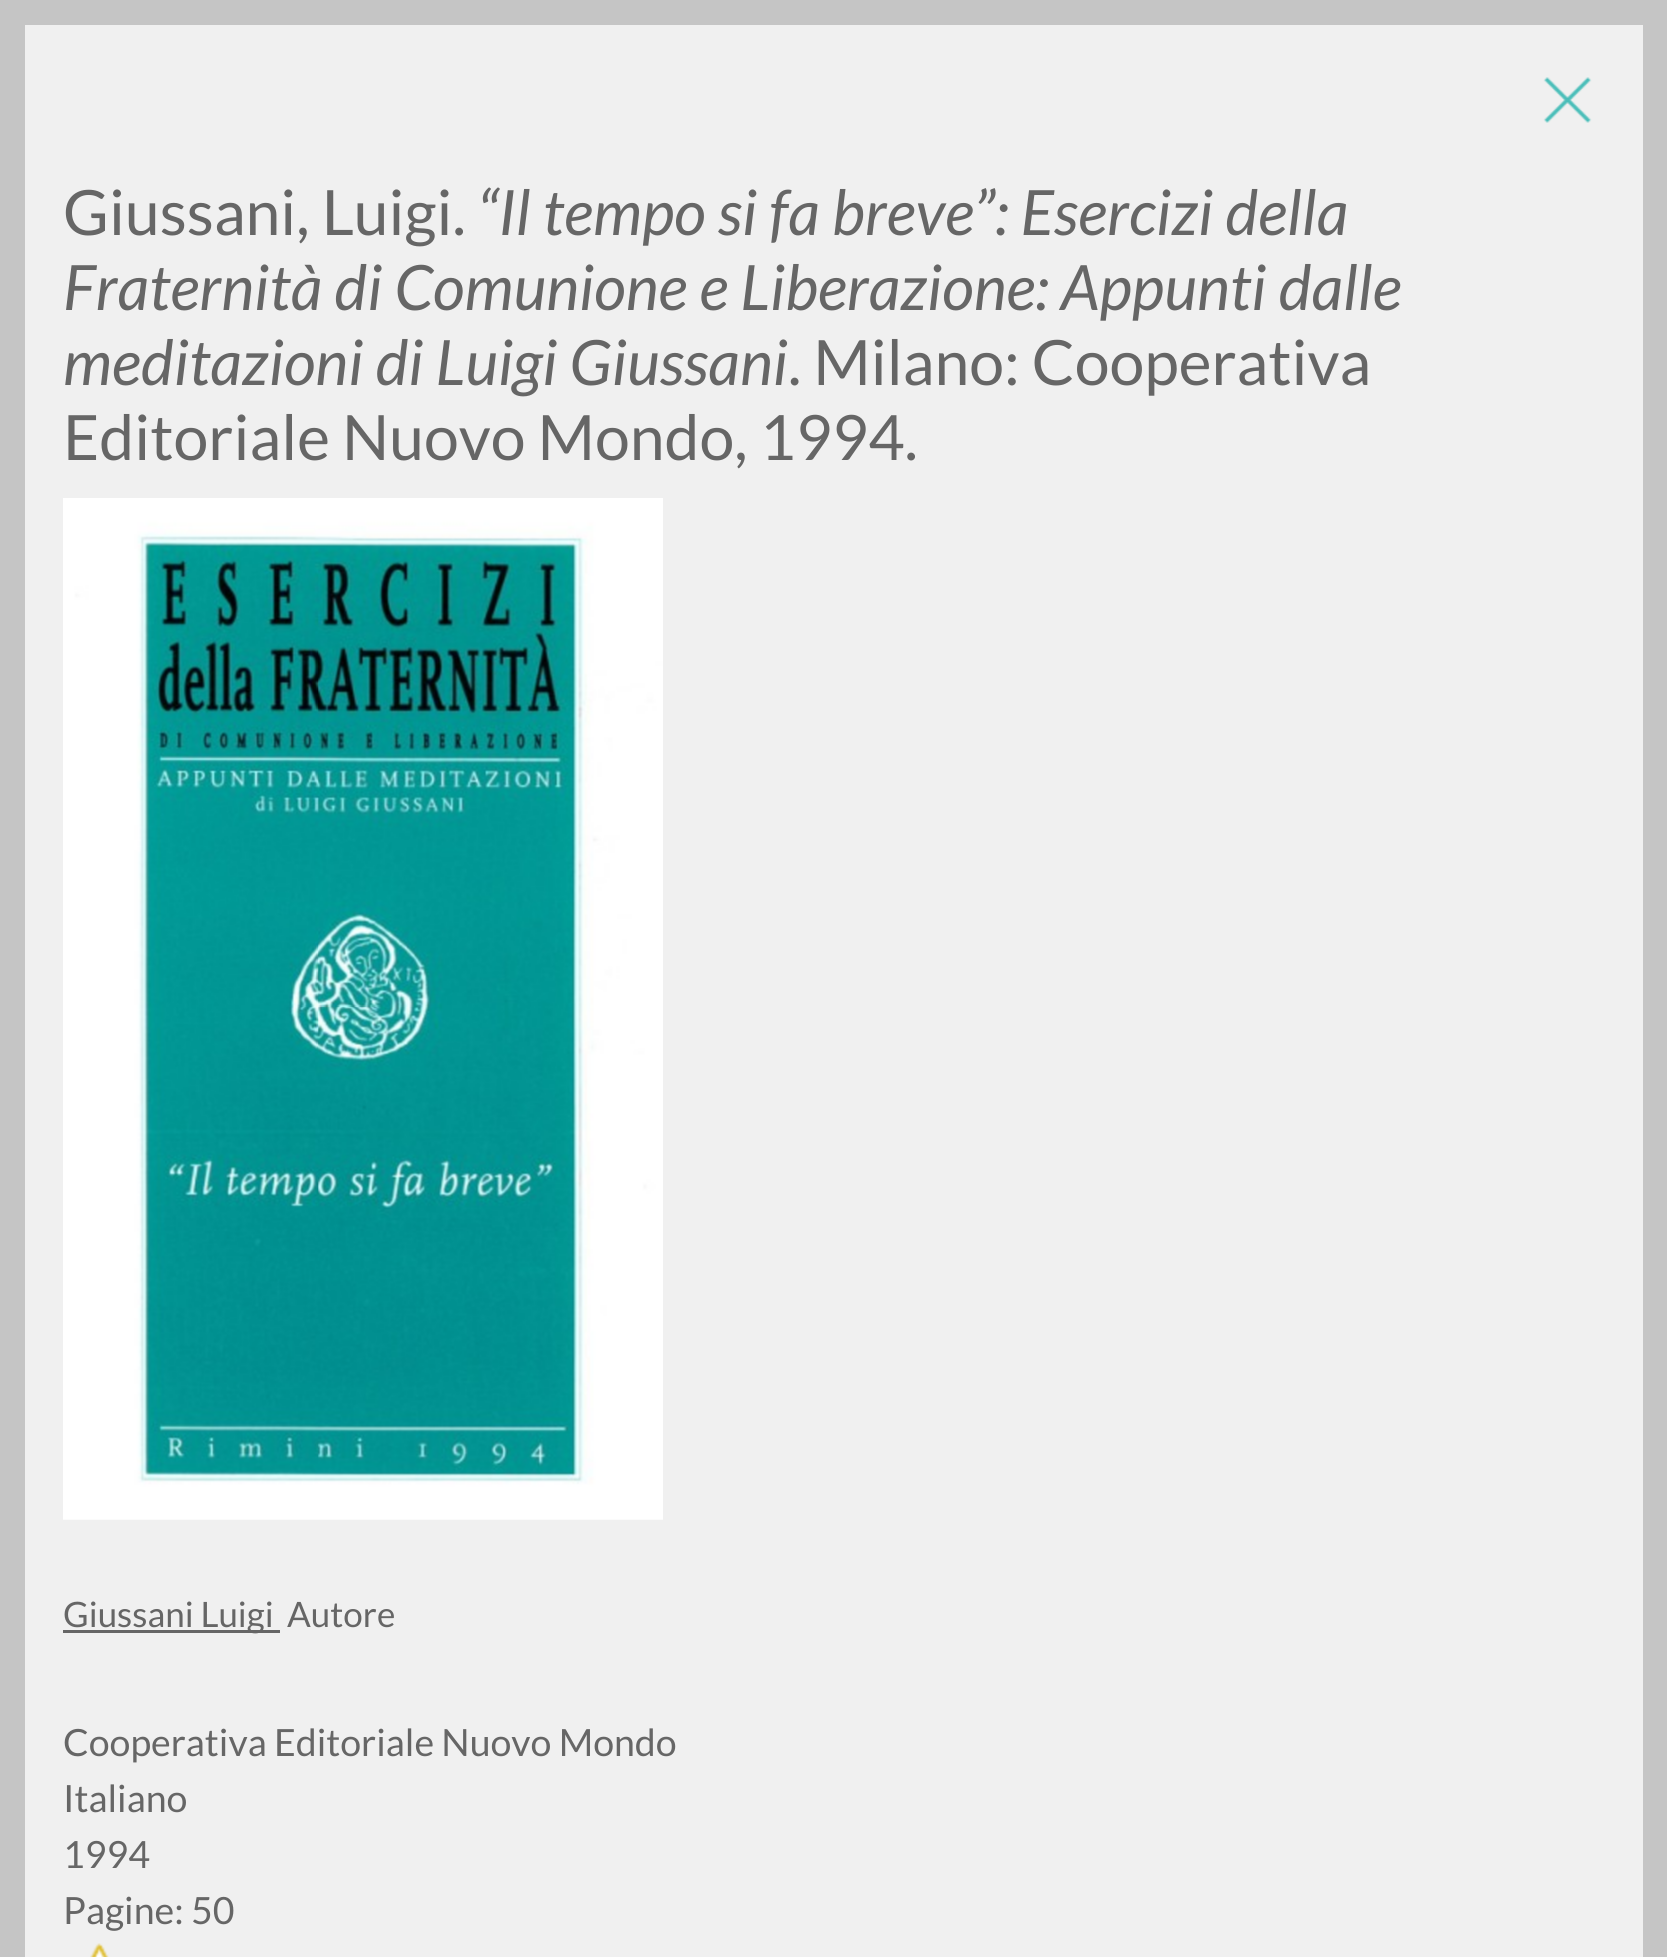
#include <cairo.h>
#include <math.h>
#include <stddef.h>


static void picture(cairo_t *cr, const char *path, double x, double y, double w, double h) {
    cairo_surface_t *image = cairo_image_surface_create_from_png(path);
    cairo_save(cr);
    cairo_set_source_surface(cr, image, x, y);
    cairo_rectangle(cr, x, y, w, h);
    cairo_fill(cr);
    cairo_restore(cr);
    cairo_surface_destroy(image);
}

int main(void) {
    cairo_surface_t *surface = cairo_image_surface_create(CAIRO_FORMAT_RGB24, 1667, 1957);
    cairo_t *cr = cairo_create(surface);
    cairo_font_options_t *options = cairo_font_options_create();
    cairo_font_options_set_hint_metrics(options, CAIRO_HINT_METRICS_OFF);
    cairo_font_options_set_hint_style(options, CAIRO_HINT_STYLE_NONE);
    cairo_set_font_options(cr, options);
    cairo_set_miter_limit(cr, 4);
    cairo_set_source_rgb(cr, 0.773, 0.773, 0.773);
    cairo_paint(cr);
    cairo_set_source_rgb(cr, 0.941, 0.941, 0.941);
    cairo_rectangle(cr, 25, 25, 1618, 1932);
    cairo_fill(cr);
    picture(cr, "img1.png", 1543, 77, 49, 46);
    cairo_select_font_face(cr, "Lato", CAIRO_FONT_SLANT_NORMAL, CAIRO_FONT_WEIGHT_NORMAL);
    cairo_set_font_size(cr, 62.5);
    cairo_set_source_rgb(cr, 0.4, 0.4, 0.4);
    cairo_move_to(cr, 63, 235);
    cairo_show_text(cr, "Giussani, Luigi.");
    cairo_select_font_face(cr, "Lato", CAIRO_FONT_SLANT_ITALIC, CAIRO_FONT_WEIGHT_NORMAL);
    cairo_move_to(cr, 477, 235);
    cairo_show_text(cr, "“Il tempo si fa breve”: Esercizi della");
    cairo_move_to(cr, 63, 310);
    cairo_show_text(cr, "Fraternità di Comunione e Liberazione: Appunti dalle");
    cairo_move_to(cr, 63, 385);
    cairo_show_text(cr, "meditazioni di Luigi Giussani");
    cairo_select_font_face(cr, "Lato", CAIRO_FONT_SLANT_NORMAL, CAIRO_FONT_WEIGHT_NORMAL);
    cairo_move_to(cr, 788, 385);
    cairo_show_text(cr, ". Milano: Cooperativa");
    cairo_move_to(cr, 63, 460);
    cairo_show_text(cr, "Editoriale Nuovo Mondo, 1994.");
    picture(cr, "img2.png", 63, 498, 600, 1022);
    cairo_rectangle(cr, 63, 1630, 217, 3);
    cairo_fill(cr);
    cairo_set_font_size(cr, 35);
    cairo_move_to(cr, 63, 1627);
    cairo_show_text(cr, "Giussani Luigi");
    cairo_move_to(cr, 287, 1627);
    cairo_show_text(cr, "Autore");
    cairo_set_font_size(cr, 37.5);
    cairo_move_to(cr, 63, 1756);
    cairo_show_text(cr, "Cooperativa Editoriale Nuovo Mondo");
    cairo_move_to(cr, 63, 1812);
    cairo_show_text(cr, "Italiano");
    cairo_move_to(cr, 63, 1868);
    cairo_show_text(cr, "1994");
    cairo_move_to(cr, 63, 1924);
    cairo_show_text(cr, "Pagine: 50");
    picture(cr, "img3.png", 90, 1943, 19, 14);
    cairo_surface_write_to_png(surface, "page.png");
    cairo_font_options_destroy(options);
    cairo_destroy(cr);
    cairo_surface_destroy(surface);
    return 0;
}
